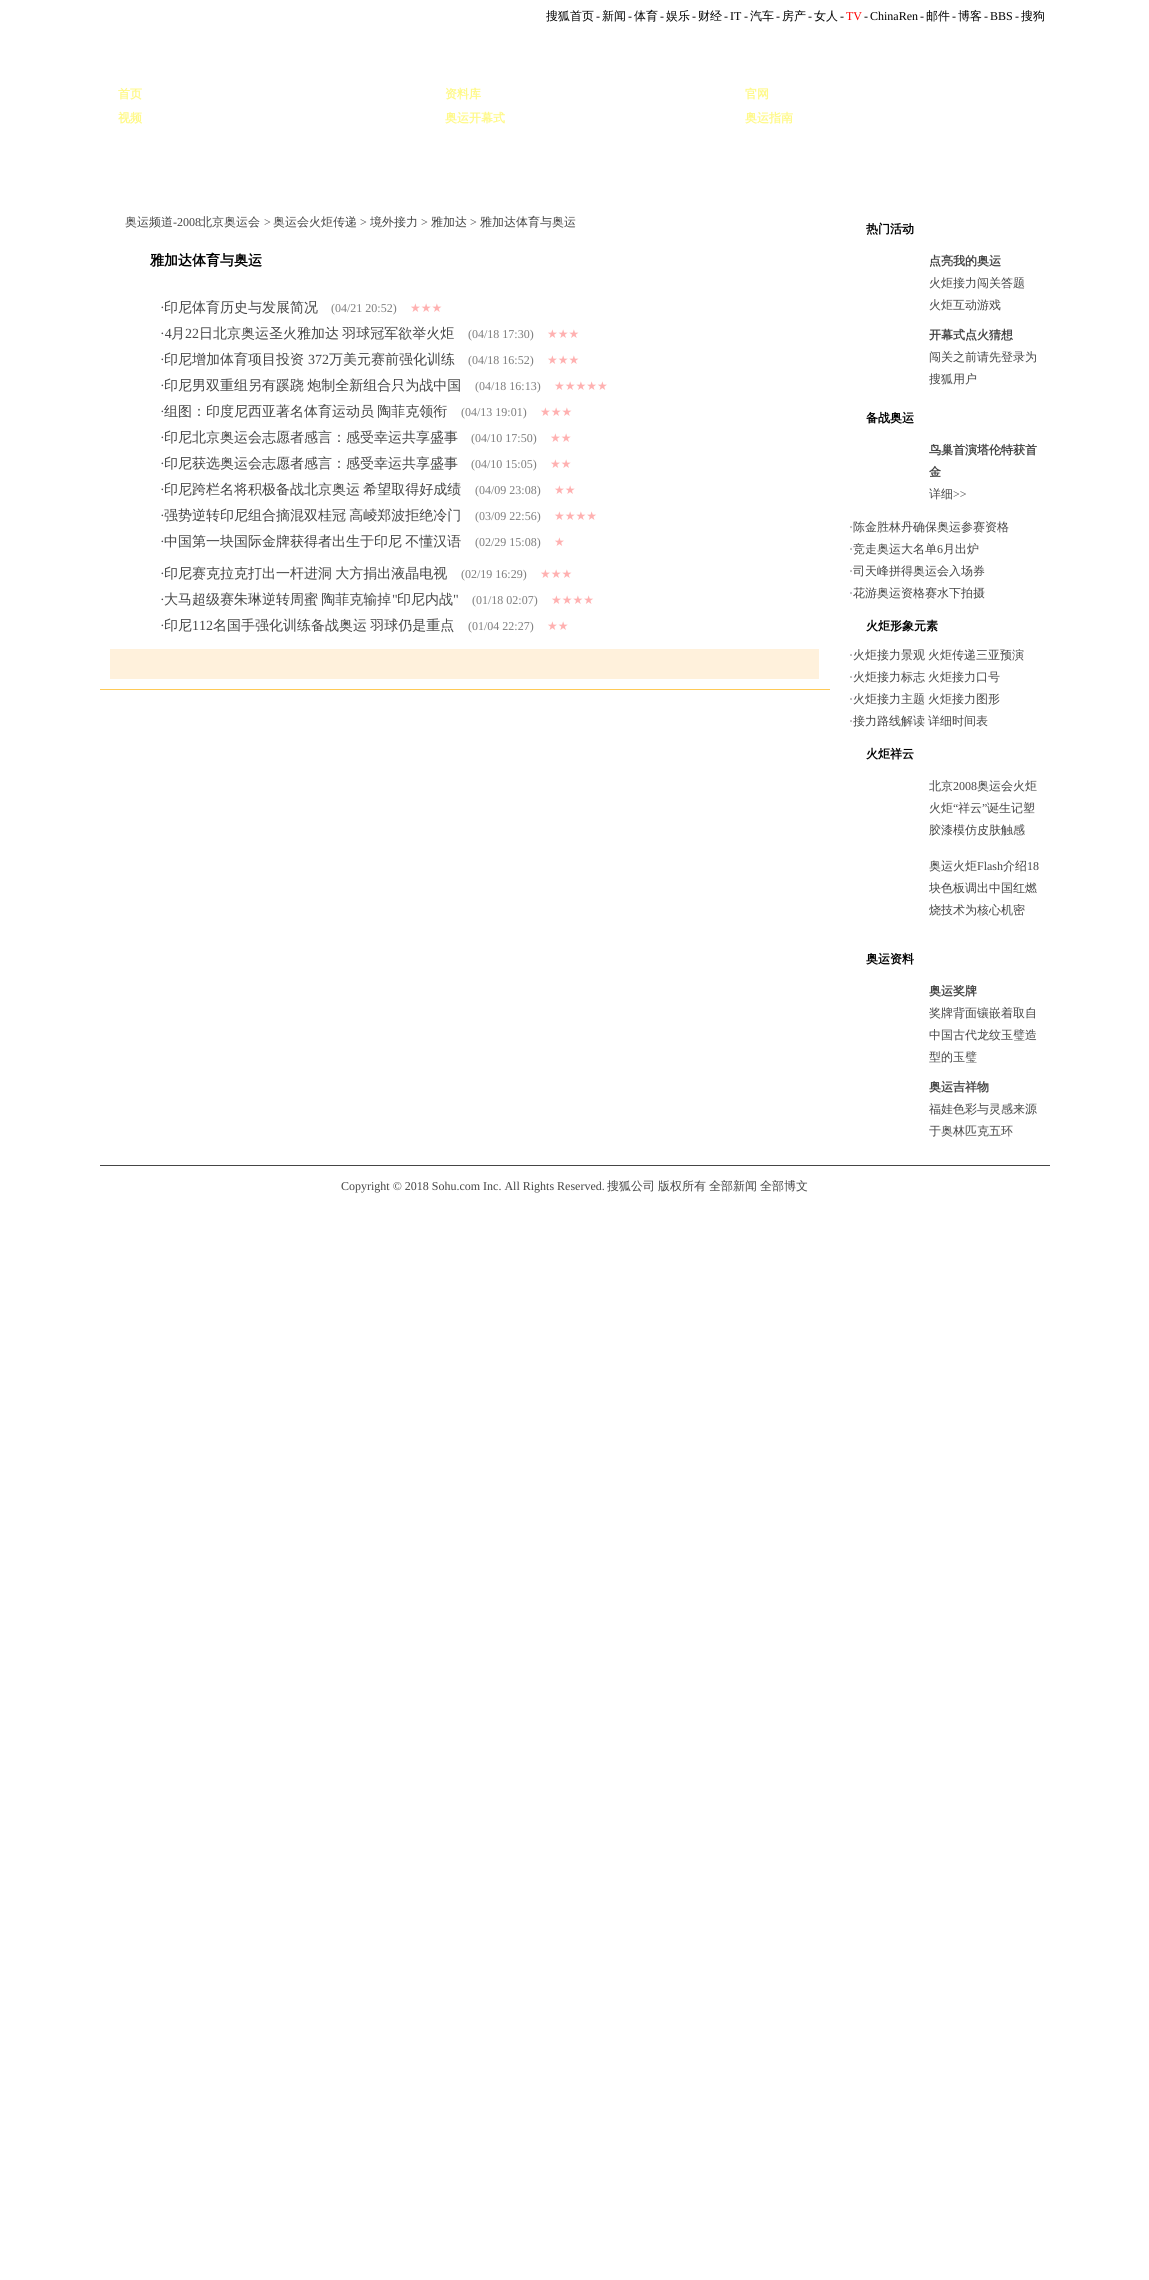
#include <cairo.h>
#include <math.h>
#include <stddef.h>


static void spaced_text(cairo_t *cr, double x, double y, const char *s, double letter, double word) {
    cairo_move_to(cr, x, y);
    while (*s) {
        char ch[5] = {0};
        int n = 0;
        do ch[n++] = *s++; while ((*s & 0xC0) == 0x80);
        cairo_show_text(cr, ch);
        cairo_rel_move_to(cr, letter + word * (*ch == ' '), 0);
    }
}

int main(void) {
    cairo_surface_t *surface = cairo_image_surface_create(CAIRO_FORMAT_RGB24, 1149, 2280);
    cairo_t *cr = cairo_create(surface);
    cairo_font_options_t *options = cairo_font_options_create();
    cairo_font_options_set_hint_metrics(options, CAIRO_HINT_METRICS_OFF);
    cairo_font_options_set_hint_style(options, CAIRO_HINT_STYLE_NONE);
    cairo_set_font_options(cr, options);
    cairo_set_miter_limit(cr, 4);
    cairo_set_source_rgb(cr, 1, 1, 1);
    cairo_paint(cr);
    cairo_select_font_face(cr, "WenQuanYi Zen Hei Medium", CAIRO_FONT_SLANT_NORMAL, CAIRO_FONT_WEIGHT_NORMAL);
    cairo_set_font_size(cr, 12);
    cairo_set_source_rgb(cr, 0, 0, 0);
    cairo_move_to(cr, 546, 20);
    cairo_show_text(cr, "搜狐首页");
    cairo_select_font_face(cr, "Liberation Serif", CAIRO_FONT_SLANT_NORMAL, CAIRO_FONT_WEIGHT_NORMAL);
    cairo_move_to(cr, 596, 20);
    cairo_show_text(cr, "-");
    cairo_select_font_face(cr, "WenQuanYi Zen Hei Medium", CAIRO_FONT_SLANT_NORMAL, CAIRO_FONT_WEIGHT_NORMAL);
    cairo_move_to(cr, 602, 20);
    cairo_show_text(cr, "新闻");
    cairo_select_font_face(cr, "Liberation Serif", CAIRO_FONT_SLANT_NORMAL, CAIRO_FONT_WEIGHT_NORMAL);
    cairo_move_to(cr, 628, 20);
    cairo_show_text(cr, "-");
    cairo_select_font_face(cr, "WenQuanYi Zen Hei Medium", CAIRO_FONT_SLANT_NORMAL, CAIRO_FONT_WEIGHT_NORMAL);
    cairo_move_to(cr, 634, 20);
    cairo_show_text(cr, "体育");
    cairo_select_font_face(cr, "Liberation Serif", CAIRO_FONT_SLANT_NORMAL, CAIRO_FONT_WEIGHT_NORMAL);
    cairo_move_to(cr, 660, 20);
    cairo_show_text(cr, "-");
    cairo_select_font_face(cr, "WenQuanYi Zen Hei Medium", CAIRO_FONT_SLANT_NORMAL, CAIRO_FONT_WEIGHT_NORMAL);
    cairo_move_to(cr, 666, 20);
    cairo_show_text(cr, "娱乐");
    cairo_select_font_face(cr, "Liberation Serif", CAIRO_FONT_SLANT_NORMAL, CAIRO_FONT_WEIGHT_NORMAL);
    cairo_move_to(cr, 692, 20);
    cairo_show_text(cr, "-");
    cairo_select_font_face(cr, "WenQuanYi Zen Hei Medium", CAIRO_FONT_SLANT_NORMAL, CAIRO_FONT_WEIGHT_NORMAL);
    cairo_move_to(cr, 698, 20);
    cairo_show_text(cr, "财经");
    cairo_select_font_face(cr, "Liberation Serif", CAIRO_FONT_SLANT_NORMAL, CAIRO_FONT_WEIGHT_NORMAL);
    cairo_move_to(cr, 724, 20);
    cairo_show_text(cr, "-");
    cairo_move_to(cr, 730, 20);
    cairo_show_text(cr, "IT");
    cairo_move_to(cr, 744, 20);
    cairo_show_text(cr, "-");
    cairo_select_font_face(cr, "WenQuanYi Zen Hei Medium", CAIRO_FONT_SLANT_NORMAL, CAIRO_FONT_WEIGHT_NORMAL);
    cairo_move_to(cr, 750, 20);
    cairo_show_text(cr, "汽车");
    cairo_select_font_face(cr, "Liberation Serif", CAIRO_FONT_SLANT_NORMAL, CAIRO_FONT_WEIGHT_NORMAL);
    cairo_move_to(cr, 776, 20);
    cairo_show_text(cr, "-");
    cairo_select_font_face(cr, "WenQuanYi Zen Hei Medium", CAIRO_FONT_SLANT_NORMAL, CAIRO_FONT_WEIGHT_NORMAL);
    cairo_move_to(cr, 782, 20);
    cairo_show_text(cr, "房产");
    cairo_select_font_face(cr, "Liberation Serif", CAIRO_FONT_SLANT_NORMAL, CAIRO_FONT_WEIGHT_NORMAL);
    cairo_move_to(cr, 808, 20);
    cairo_show_text(cr, "-");
    cairo_select_font_face(cr, "WenQuanYi Zen Hei Medium", CAIRO_FONT_SLANT_NORMAL, CAIRO_FONT_WEIGHT_NORMAL);
    cairo_move_to(cr, 814, 20);
    cairo_show_text(cr, "女人");
    cairo_select_font_face(cr, "Liberation Serif", CAIRO_FONT_SLANT_NORMAL, CAIRO_FONT_WEIGHT_NORMAL);
    cairo_move_to(cr, 840, 20);
    cairo_show_text(cr, "-");
    cairo_set_source_rgb(cr, 1, 0, 0);
    cairo_move_to(cr, 846, 20);
    cairo_show_text(cr, "TV");
    cairo_set_source_rgb(cr, 0, 0, 0);
    cairo_move_to(cr, 864, 20);
    cairo_show_text(cr, "-");
    cairo_move_to(cr, 870, 20);
    cairo_show_text(cr, "ChinaRen");
    cairo_move_to(cr, 920, 20);
    cairo_show_text(cr, "-");
    cairo_select_font_face(cr, "WenQuanYi Zen Hei Medium", CAIRO_FONT_SLANT_NORMAL, CAIRO_FONT_WEIGHT_NORMAL);
    cairo_move_to(cr, 926, 20);
    cairo_show_text(cr, "邮件");
    cairo_select_font_face(cr, "Liberation Serif", CAIRO_FONT_SLANT_NORMAL, CAIRO_FONT_WEIGHT_NORMAL);
    cairo_move_to(cr, 952, 20);
    cairo_show_text(cr, "-");
    cairo_select_font_face(cr, "WenQuanYi Zen Hei Medium", CAIRO_FONT_SLANT_NORMAL, CAIRO_FONT_WEIGHT_NORMAL);
    cairo_move_to(cr, 958, 20);
    cairo_show_text(cr, "博客");
    cairo_select_font_face(cr, "Liberation Serif", CAIRO_FONT_SLANT_NORMAL, CAIRO_FONT_WEIGHT_NORMAL);
    cairo_move_to(cr, 984, 20);
    cairo_show_text(cr, "-");
    cairo_move_to(cr, 990, 20);
    cairo_show_text(cr, "BBS");
    cairo_move_to(cr, 1015, 20);
    cairo_show_text(cr, "-");
    cairo_select_font_face(cr, "WenQuanYi Zen Hei Medium", CAIRO_FONT_SLANT_NORMAL, CAIRO_FONT_WEIGHT_NORMAL);
    cairo_move_to(cr, 1021, 20);
    cairo_show_text(cr, "搜狗");
    cairo_select_font_face(cr, "WenQuanYi Zen Hei", CAIRO_FONT_SLANT_NORMAL, CAIRO_FONT_WEIGHT_BOLD);
    cairo_set_source_rgb(cr, 1, 0.976, 0.541);
    cairo_move_to(cr, 118, 98);
    cairo_show_text(cr, "首页");
    cairo_move_to(cr, 118, 122);
    cairo_show_text(cr, "视频");
    cairo_move_to(cr, 445, 98);
    cairo_show_text(cr, "资料库");
    cairo_move_to(cr, 445, 122);
    cairo_show_text(cr, "奥运开幕式");
    cairo_move_to(cr, 745, 98);
    cairo_show_text(cr, "官网");
    cairo_move_to(cr, 745, 122);
    cairo_show_text(cr, "奥运指南");
    cairo_select_font_face(cr, "WenQuanYi Zen Hei Medium", CAIRO_FONT_SLANT_NORMAL, CAIRO_FONT_WEIGHT_NORMAL);
    cairo_set_source_rgb(cr, 0.271, 0.271, 0.271);
    cairo_move_to(cr, 125, 226);
    cairo_show_text(cr, "奥运频道");
    cairo_select_font_face(cr, "Liberation Serif", CAIRO_FONT_SLANT_NORMAL, CAIRO_FONT_WEIGHT_NORMAL);
    cairo_move_to(cr, 173, 226);
    cairo_show_text(cr, "-2008");
    cairo_select_font_face(cr, "WenQuanYi Zen Hei Medium", CAIRO_FONT_SLANT_NORMAL, CAIRO_FONT_WEIGHT_NORMAL);
    cairo_move_to(cr, 200, 226);
    cairo_show_text(cr, "北京奥运会");
    cairo_select_font_face(cr, "Liberation Serif", CAIRO_FONT_SLANT_NORMAL, CAIRO_FONT_WEIGHT_NORMAL);
    cairo_move_to(cr, 264, 226);
    cairo_show_text(cr, ">");
    cairo_select_font_face(cr, "WenQuanYi Zen Hei Medium", CAIRO_FONT_SLANT_NORMAL, CAIRO_FONT_WEIGHT_NORMAL);
    cairo_move_to(cr, 273, 226);
    cairo_show_text(cr, "奥运会火炬传递");
    cairo_select_font_face(cr, "Liberation Serif", CAIRO_FONT_SLANT_NORMAL, CAIRO_FONT_WEIGHT_NORMAL);
    cairo_move_to(cr, 360, 226);
    cairo_show_text(cr, ">");
    cairo_select_font_face(cr, "WenQuanYi Zen Hei Medium", CAIRO_FONT_SLANT_NORMAL, CAIRO_FONT_WEIGHT_NORMAL);
    cairo_move_to(cr, 370, 226);
    cairo_show_text(cr, "境外接力");
    cairo_select_font_face(cr, "Liberation Serif", CAIRO_FONT_SLANT_NORMAL, CAIRO_FONT_WEIGHT_NORMAL);
    cairo_move_to(cr, 421, 226);
    cairo_show_text(cr, ">");
    cairo_select_font_face(cr, "WenQuanYi Zen Hei Medium", CAIRO_FONT_SLANT_NORMAL, CAIRO_FONT_WEIGHT_NORMAL);
    cairo_move_to(cr, 431, 226);
    cairo_show_text(cr, "雅加达");
    cairo_select_font_face(cr, "Liberation Serif", CAIRO_FONT_SLANT_NORMAL, CAIRO_FONT_WEIGHT_NORMAL);
    cairo_move_to(cr, 470, 226);
    cairo_show_text(cr, ">");
    cairo_select_font_face(cr, "WenQuanYi Zen Hei Medium", CAIRO_FONT_SLANT_NORMAL, CAIRO_FONT_WEIGHT_NORMAL);
    cairo_move_to(cr, 480, 226);
    cairo_show_text(cr, "雅加达体育与奥运");
    cairo_set_source_rgb(cr, 1, 0.792, 0.341);
    cairo_rectangle(cr, 100, 689, 730, 1);
    cairo_fill(cr);
    cairo_select_font_face(cr, "WenQuanYi Zen Hei", CAIRO_FONT_SLANT_NORMAL, CAIRO_FONT_WEIGHT_BOLD);
    cairo_set_font_size(cr, 14);
    cairo_set_source_rgb(cr, 0, 0, 0);
    cairo_move_to(cr, 150, 265);
    cairo_show_text(cr, "雅加达体育与奥运");
    cairo_select_font_face(cr, "Liberation Serif", CAIRO_FONT_SLANT_NORMAL, CAIRO_FONT_WEIGHT_NORMAL);
    cairo_set_source_rgb(cr, 0.271, 0.271, 0.271);
    cairo_move_to(cr, 160, 312);
    cairo_show_text(cr, "·");
    cairo_select_font_face(cr, "WenQuanYi Zen Hei Medium", CAIRO_FONT_SLANT_NORMAL, CAIRO_FONT_WEIGHT_NORMAL);
    cairo_move_to(cr, 164, 312);
    cairo_show_text(cr, "印尼体育历史与发展简况");
    cairo_select_font_face(cr, "Liberation Serif", CAIRO_FONT_SLANT_NORMAL, CAIRO_FONT_WEIGHT_NORMAL);
    cairo_set_font_size(cr, 12);
    cairo_set_source_rgb(cr, 0.486, 0.486, 0.486);
    cairo_move_to(cr, 331, 312);
    cairo_show_text(cr, "(04/21 20:52)");
    cairo_select_font_face(cr, "DejaVu Sans", CAIRO_FONT_SLANT_NORMAL, CAIRO_FONT_WEIGHT_NORMAL);
    cairo_set_source_rgb(cr, 1, 0.694, 0.694);
    cairo_move_to(cr, 410, 312);
    cairo_show_text(cr, "★★★");
    cairo_select_font_face(cr, "Liberation Serif", CAIRO_FONT_SLANT_NORMAL, CAIRO_FONT_WEIGHT_NORMAL);
    cairo_set_font_size(cr, 14);
    cairo_set_source_rgb(cr, 0.271, 0.271, 0.271);
    cairo_move_to(cr, 160, 338);
    cairo_show_text(cr, "·4");
    cairo_select_font_face(cr, "WenQuanYi Zen Hei Medium", CAIRO_FONT_SLANT_NORMAL, CAIRO_FONT_WEIGHT_NORMAL);
    cairo_move_to(cr, 171, 338);
    cairo_show_text(cr, "月");
    cairo_select_font_face(cr, "Liberation Serif", CAIRO_FONT_SLANT_NORMAL, CAIRO_FONT_WEIGHT_NORMAL);
    cairo_move_to(cr, 185, 338);
    cairo_show_text(cr, "22");
    cairo_select_font_face(cr, "WenQuanYi Zen Hei Medium", CAIRO_FONT_SLANT_NORMAL, CAIRO_FONT_WEIGHT_NORMAL);
    spaced_text(cr, 199, 338, "日北京奥运圣火雅加达 羽球冠军欲举火炬", 0, -1);
    cairo_select_font_face(cr, "Liberation Serif", CAIRO_FONT_SLANT_NORMAL, CAIRO_FONT_WEIGHT_NORMAL);
    cairo_set_font_size(cr, 12);
    cairo_set_source_rgb(cr, 0.486, 0.486, 0.486);
    cairo_move_to(cr, 468, 338);
    cairo_show_text(cr, "(04/18 17:30)");
    cairo_select_font_face(cr, "DejaVu Sans", CAIRO_FONT_SLANT_NORMAL, CAIRO_FONT_WEIGHT_NORMAL);
    cairo_set_source_rgb(cr, 1, 0.694, 0.694);
    cairo_move_to(cr, 547, 338);
    cairo_show_text(cr, "★★★");
    cairo_select_font_face(cr, "Liberation Serif", CAIRO_FONT_SLANT_NORMAL, CAIRO_FONT_WEIGHT_NORMAL);
    cairo_set_font_size(cr, 14);
    cairo_set_source_rgb(cr, 0.271, 0.271, 0.271);
    cairo_move_to(cr, 160, 364);
    cairo_show_text(cr, "·");
    cairo_select_font_face(cr, "WenQuanYi Zen Hei Medium", CAIRO_FONT_SLANT_NORMAL, CAIRO_FONT_WEIGHT_NORMAL);
    cairo_move_to(cr, 164, 364);
    cairo_show_text(cr, "印尼增加体育项目投资");
    cairo_select_font_face(cr, "Liberation Serif", CAIRO_FONT_SLANT_NORMAL, CAIRO_FONT_WEIGHT_NORMAL);
    cairo_move_to(cr, 308, 364);
    cairo_show_text(cr, "372");
    cairo_select_font_face(cr, "WenQuanYi Zen Hei Medium", CAIRO_FONT_SLANT_NORMAL, CAIRO_FONT_WEIGHT_NORMAL);
    cairo_move_to(cr, 329, 364);
    cairo_show_text(cr, "万美元赛前强化训练");
    cairo_select_font_face(cr, "Liberation Serif", CAIRO_FONT_SLANT_NORMAL, CAIRO_FONT_WEIGHT_NORMAL);
    cairo_set_font_size(cr, 12);
    cairo_set_source_rgb(cr, 0.486, 0.486, 0.486);
    cairo_move_to(cr, 468, 364);
    cairo_show_text(cr, "(04/18 16:52)");
    cairo_select_font_face(cr, "DejaVu Sans", CAIRO_FONT_SLANT_NORMAL, CAIRO_FONT_WEIGHT_NORMAL);
    cairo_set_source_rgb(cr, 1, 0.694, 0.694);
    cairo_move_to(cr, 547, 364);
    cairo_show_text(cr, "★★★");
    cairo_select_font_face(cr, "Liberation Serif", CAIRO_FONT_SLANT_NORMAL, CAIRO_FONT_WEIGHT_NORMAL);
    cairo_set_font_size(cr, 14);
    cairo_set_source_rgb(cr, 0.271, 0.271, 0.271);
    cairo_move_to(cr, 160, 390);
    cairo_show_text(cr, "·");
    cairo_select_font_face(cr, "WenQuanYi Zen Hei Medium", CAIRO_FONT_SLANT_NORMAL, CAIRO_FONT_WEIGHT_NORMAL);
    spaced_text(cr, 164, 390, "印尼男双重组另有蹊跷 炮制全新组合只为战中国", 0, -1);
    cairo_select_font_face(cr, "Liberation Serif", CAIRO_FONT_SLANT_NORMAL, CAIRO_FONT_WEIGHT_NORMAL);
    cairo_set_font_size(cr, 12);
    cairo_set_source_rgb(cr, 0.486, 0.486, 0.486);
    cairo_move_to(cr, 475, 390);
    cairo_show_text(cr, "(04/18 16:13)");
    cairo_select_font_face(cr, "DejaVu Sans", CAIRO_FONT_SLANT_NORMAL, CAIRO_FONT_WEIGHT_NORMAL);
    cairo_set_source_rgb(cr, 1, 0.694, 0.694);
    cairo_move_to(cr, 554, 390);
    cairo_show_text(cr, "★★★★★");
    cairo_select_font_face(cr, "Liberation Serif", CAIRO_FONT_SLANT_NORMAL, CAIRO_FONT_WEIGHT_NORMAL);
    cairo_set_font_size(cr, 14);
    cairo_set_source_rgb(cr, 0.271, 0.271, 0.271);
    cairo_move_to(cr, 160, 416);
    cairo_show_text(cr, "·");
    cairo_select_font_face(cr, "WenQuanYi Zen Hei Medium", CAIRO_FONT_SLANT_NORMAL, CAIRO_FONT_WEIGHT_NORMAL);
    spaced_text(cr, 164, 416, "组图：印度尼西亚著名体育运动员 陶菲克领衔", 0, -1);
    cairo_select_font_face(cr, "Liberation Serif", CAIRO_FONT_SLANT_NORMAL, CAIRO_FONT_WEIGHT_NORMAL);
    cairo_set_font_size(cr, 12);
    cairo_set_source_rgb(cr, 0.486, 0.486, 0.486);
    cairo_move_to(cr, 461, 416);
    cairo_show_text(cr, "(04/13 19:01)");
    cairo_select_font_face(cr, "DejaVu Sans", CAIRO_FONT_SLANT_NORMAL, CAIRO_FONT_WEIGHT_NORMAL);
    cairo_set_source_rgb(cr, 1, 0.694, 0.694);
    cairo_move_to(cr, 540, 416);
    cairo_show_text(cr, "★★★");
    cairo_select_font_face(cr, "Liberation Serif", CAIRO_FONT_SLANT_NORMAL, CAIRO_FONT_WEIGHT_NORMAL);
    cairo_set_font_size(cr, 14);
    cairo_set_source_rgb(cr, 0.271, 0.271, 0.271);
    cairo_move_to(cr, 160, 442);
    cairo_show_text(cr, "·");
    cairo_select_font_face(cr, "WenQuanYi Zen Hei Medium", CAIRO_FONT_SLANT_NORMAL, CAIRO_FONT_WEIGHT_NORMAL);
    cairo_move_to(cr, 164, 442);
    cairo_show_text(cr, "印尼北京奥运会志愿者感言：感受幸运共享盛事");
    cairo_select_font_face(cr, "Liberation Serif", CAIRO_FONT_SLANT_NORMAL, CAIRO_FONT_WEIGHT_NORMAL);
    cairo_set_font_size(cr, 12);
    cairo_set_source_rgb(cr, 0.486, 0.486, 0.486);
    cairo_move_to(cr, 471, 442);
    cairo_show_text(cr, "(04/10 17:50)");
    cairo_select_font_face(cr, "DejaVu Sans", CAIRO_FONT_SLANT_NORMAL, CAIRO_FONT_WEIGHT_NORMAL);
    cairo_set_source_rgb(cr, 1, 0.694, 0.694);
    cairo_move_to(cr, 550, 442);
    cairo_show_text(cr, "★★");
    cairo_select_font_face(cr, "Liberation Serif", CAIRO_FONT_SLANT_NORMAL, CAIRO_FONT_WEIGHT_NORMAL);
    cairo_set_font_size(cr, 14);
    cairo_set_source_rgb(cr, 0.271, 0.271, 0.271);
    cairo_move_to(cr, 160, 468);
    cairo_show_text(cr, "·");
    cairo_select_font_face(cr, "WenQuanYi Zen Hei Medium", CAIRO_FONT_SLANT_NORMAL, CAIRO_FONT_WEIGHT_NORMAL);
    cairo_move_to(cr, 164, 468);
    cairo_show_text(cr, "印尼获选奥运会志愿者感言：感受幸运共享盛事");
    cairo_select_font_face(cr, "Liberation Serif", CAIRO_FONT_SLANT_NORMAL, CAIRO_FONT_WEIGHT_NORMAL);
    cairo_set_font_size(cr, 12);
    cairo_set_source_rgb(cr, 0.486, 0.486, 0.486);
    cairo_move_to(cr, 471, 468);
    cairo_show_text(cr, "(04/10 15:05)");
    cairo_select_font_face(cr, "DejaVu Sans", CAIRO_FONT_SLANT_NORMAL, CAIRO_FONT_WEIGHT_NORMAL);
    cairo_set_source_rgb(cr, 1, 0.694, 0.694);
    cairo_move_to(cr, 550, 468);
    cairo_show_text(cr, "★★");
    cairo_select_font_face(cr, "Liberation Serif", CAIRO_FONT_SLANT_NORMAL, CAIRO_FONT_WEIGHT_NORMAL);
    cairo_set_font_size(cr, 14);
    cairo_set_source_rgb(cr, 0.271, 0.271, 0.271);
    cairo_move_to(cr, 160, 494);
    cairo_show_text(cr, "·");
    cairo_select_font_face(cr, "WenQuanYi Zen Hei Medium", CAIRO_FONT_SLANT_NORMAL, CAIRO_FONT_WEIGHT_NORMAL);
    spaced_text(cr, 164, 494, "印尼跨栏名将积极备战北京奥运 希望取得好成绩", 0, -1);
    cairo_select_font_face(cr, "Liberation Serif", CAIRO_FONT_SLANT_NORMAL, CAIRO_FONT_WEIGHT_NORMAL);
    cairo_set_font_size(cr, 12);
    cairo_set_source_rgb(cr, 0.486, 0.486, 0.486);
    cairo_move_to(cr, 475, 494);
    cairo_show_text(cr, "(04/09 23:08)");
    cairo_select_font_face(cr, "DejaVu Sans", CAIRO_FONT_SLANT_NORMAL, CAIRO_FONT_WEIGHT_NORMAL);
    cairo_set_source_rgb(cr, 1, 0.694, 0.694);
    cairo_move_to(cr, 554, 494);
    cairo_show_text(cr, "★★");
    cairo_select_font_face(cr, "Liberation Serif", CAIRO_FONT_SLANT_NORMAL, CAIRO_FONT_WEIGHT_NORMAL);
    cairo_set_font_size(cr, 14);
    cairo_set_source_rgb(cr, 0.271, 0.271, 0.271);
    cairo_move_to(cr, 160, 520);
    cairo_show_text(cr, "·");
    cairo_select_font_face(cr, "WenQuanYi Zen Hei Medium", CAIRO_FONT_SLANT_NORMAL, CAIRO_FONT_WEIGHT_NORMAL);
    spaced_text(cr, 164, 520, "强势逆转印尼组合摘混双桂冠 高崚郑波拒绝冷门", 0, -1);
    cairo_select_font_face(cr, "Liberation Serif", CAIRO_FONT_SLANT_NORMAL, CAIRO_FONT_WEIGHT_NORMAL);
    cairo_set_font_size(cr, 12);
    cairo_set_source_rgb(cr, 0.486, 0.486, 0.486);
    cairo_move_to(cr, 475, 520);
    cairo_show_text(cr, "(03/09 22:56)");
    cairo_select_font_face(cr, "DejaVu Sans", CAIRO_FONT_SLANT_NORMAL, CAIRO_FONT_WEIGHT_NORMAL);
    cairo_set_source_rgb(cr, 1, 0.694, 0.694);
    cairo_move_to(cr, 554, 520);
    cairo_show_text(cr, "★★★★");
    cairo_select_font_face(cr, "Liberation Serif", CAIRO_FONT_SLANT_NORMAL, CAIRO_FONT_WEIGHT_NORMAL);
    cairo_set_font_size(cr, 14);
    cairo_set_source_rgb(cr, 0.271, 0.271, 0.271);
    cairo_move_to(cr, 160, 546);
    cairo_show_text(cr, "·");
    cairo_select_font_face(cr, "WenQuanYi Zen Hei Medium", CAIRO_FONT_SLANT_NORMAL, CAIRO_FONT_WEIGHT_NORMAL);
    spaced_text(cr, 164, 546, "中国第一块国际金牌获得者出生于印尼 不懂汉语", 0, -1);
    cairo_select_font_face(cr, "Liberation Serif", CAIRO_FONT_SLANT_NORMAL, CAIRO_FONT_WEIGHT_NORMAL);
    cairo_set_font_size(cr, 12);
    cairo_set_source_rgb(cr, 0.486, 0.486, 0.486);
    cairo_move_to(cr, 475, 546);
    cairo_show_text(cr, "(02/29 15:08)");
    cairo_select_font_face(cr, "DejaVu Sans", CAIRO_FONT_SLANT_NORMAL, CAIRO_FONT_WEIGHT_NORMAL);
    cairo_set_source_rgb(cr, 1, 0.694, 0.694);
    cairo_move_to(cr, 554, 546);
    cairo_show_text(cr, "★");
    cairo_select_font_face(cr, "Liberation Serif", CAIRO_FONT_SLANT_NORMAL, CAIRO_FONT_WEIGHT_NORMAL);
    cairo_set_font_size(cr, 14);
    cairo_set_source_rgb(cr, 0.271, 0.271, 0.271);
    cairo_move_to(cr, 160, 578);
    cairo_show_text(cr, "·");
    cairo_select_font_face(cr, "WenQuanYi Zen Hei Medium", CAIRO_FONT_SLANT_NORMAL, CAIRO_FONT_WEIGHT_NORMAL);
    spaced_text(cr, 164, 578, "印尼赛克拉克打出一杆进洞 大方捐出液晶电视", 0, -1);
    cairo_select_font_face(cr, "Liberation Serif", CAIRO_FONT_SLANT_NORMAL, CAIRO_FONT_WEIGHT_NORMAL);
    cairo_set_font_size(cr, 12);
    cairo_set_source_rgb(cr, 0.486, 0.486, 0.486);
    cairo_move_to(cr, 461, 578);
    cairo_show_text(cr, "(02/19 16:29)");
    cairo_select_font_face(cr, "DejaVu Sans", CAIRO_FONT_SLANT_NORMAL, CAIRO_FONT_WEIGHT_NORMAL);
    cairo_set_source_rgb(cr, 1, 0.694, 0.694);
    cairo_move_to(cr, 540, 578);
    cairo_show_text(cr, "★★★");
    cairo_select_font_face(cr, "Liberation Serif", CAIRO_FONT_SLANT_NORMAL, CAIRO_FONT_WEIGHT_NORMAL);
    cairo_set_font_size(cr, 14);
    cairo_set_source_rgb(cr, 0.271, 0.271, 0.271);
    cairo_move_to(cr, 160, 604);
    cairo_show_text(cr, "·");
    cairo_select_font_face(cr, "WenQuanYi Zen Hei Medium", CAIRO_FONT_SLANT_NORMAL, CAIRO_FONT_WEIGHT_NORMAL);
    spaced_text(cr, 164, 604, "大马超级赛朱琳逆转周蜜 陶菲克输掉", 0, -1);
    cairo_select_font_face(cr, "Liberation Serif", CAIRO_FONT_SLANT_NORMAL, CAIRO_FONT_WEIGHT_NORMAL);
    cairo_move_to(cr, 392, 604);
    cairo_show_text(cr, "\"");
    cairo_select_font_face(cr, "WenQuanYi Zen Hei Medium", CAIRO_FONT_SLANT_NORMAL, CAIRO_FONT_WEIGHT_NORMAL);
    cairo_move_to(cr, 397, 604);
    cairo_show_text(cr, "印尼内战");
    cairo_select_font_face(cr, "Liberation Serif", CAIRO_FONT_SLANT_NORMAL, CAIRO_FONT_WEIGHT_NORMAL);
    cairo_move_to(cr, 453, 604);
    cairo_show_text(cr, "\"");
    cairo_set_font_size(cr, 12);
    cairo_set_source_rgb(cr, 0.486, 0.486, 0.486);
    cairo_move_to(cr, 472, 604);
    cairo_show_text(cr, "(01/18 02:07)");
    cairo_select_font_face(cr, "DejaVu Sans", CAIRO_FONT_SLANT_NORMAL, CAIRO_FONT_WEIGHT_NORMAL);
    cairo_set_source_rgb(cr, 1, 0.694, 0.694);
    cairo_move_to(cr, 551, 604);
    cairo_show_text(cr, "★★★★");
    cairo_select_font_face(cr, "Liberation Serif", CAIRO_FONT_SLANT_NORMAL, CAIRO_FONT_WEIGHT_NORMAL);
    cairo_set_font_size(cr, 14);
    cairo_set_source_rgb(cr, 0.271, 0.271, 0.271);
    cairo_move_to(cr, 160, 630);
    cairo_show_text(cr, "·");
    cairo_select_font_face(cr, "WenQuanYi Zen Hei Medium", CAIRO_FONT_SLANT_NORMAL, CAIRO_FONT_WEIGHT_NORMAL);
    cairo_move_to(cr, 164, 630);
    cairo_show_text(cr, "印尼");
    cairo_select_font_face(cr, "Liberation Serif", CAIRO_FONT_SLANT_NORMAL, CAIRO_FONT_WEIGHT_NORMAL);
    cairo_move_to(cr, 192, 630);
    cairo_show_text(cr, "112");
    cairo_select_font_face(cr, "WenQuanYi Zen Hei Medium", CAIRO_FONT_SLANT_NORMAL, CAIRO_FONT_WEIGHT_NORMAL);
    spaced_text(cr, 213, 630, "名国手强化训练备战奥运 羽球仍是重点", 0, -1);
    cairo_select_font_face(cr, "Liberation Serif", CAIRO_FONT_SLANT_NORMAL, CAIRO_FONT_WEIGHT_NORMAL);
    cairo_set_font_size(cr, 12);
    cairo_set_source_rgb(cr, 0.486, 0.486, 0.486);
    cairo_move_to(cr, 468, 630);
    cairo_show_text(cr, "(01/04 22:27)");
    cairo_select_font_face(cr, "DejaVu Sans", CAIRO_FONT_SLANT_NORMAL, CAIRO_FONT_WEIGHT_NORMAL);
    cairo_set_source_rgb(cr, 1, 0.694, 0.694);
    cairo_move_to(cr, 547, 630);
    cairo_show_text(cr, "★★");
    cairo_set_source_rgb(cr, 1, 0.945, 0.863);
    cairo_rectangle(cr, 110, 649, 709, 30);
    cairo_fill(cr);
    cairo_select_font_face(cr, "WenQuanYi Zen Hei", CAIRO_FONT_SLANT_NORMAL, CAIRO_FONT_WEIGHT_BOLD);
    cairo_set_source_rgb(cr, 0, 0, 0);
    cairo_move_to(cr, 866, 233);
    cairo_show_text(cr, "热门活动");
    cairo_set_source_rgb(cr, 0.271, 0.271, 0.271);
    cairo_move_to(cr, 929, 265);
    cairo_show_text(cr, "点亮我的奥运");
    cairo_select_font_face(cr, "WenQuanYi Zen Hei Medium", CAIRO_FONT_SLANT_NORMAL, CAIRO_FONT_WEIGHT_NORMAL);
    cairo_move_to(cr, 929, 287);
    cairo_show_text(cr, "火炬接力闯关答题");
    cairo_move_to(cr, 929, 309);
    cairo_show_text(cr, "火炬互动游戏");
    cairo_select_font_face(cr, "WenQuanYi Zen Hei", CAIRO_FONT_SLANT_NORMAL, CAIRO_FONT_WEIGHT_BOLD);
    cairo_move_to(cr, 929, 339);
    cairo_show_text(cr, "开幕式点火猜想");
    cairo_select_font_face(cr, "WenQuanYi Zen Hei Medium", CAIRO_FONT_SLANT_NORMAL, CAIRO_FONT_WEIGHT_NORMAL);
    cairo_move_to(cr, 929, 361);
    cairo_show_text(cr, "闯关之前请先登录为");
    cairo_move_to(cr, 929, 383);
    cairo_show_text(cr, "搜狐用户");
    cairo_select_font_face(cr, "WenQuanYi Zen Hei", CAIRO_FONT_SLANT_NORMAL, CAIRO_FONT_WEIGHT_BOLD);
    cairo_set_source_rgb(cr, 0, 0, 0);
    cairo_move_to(cr, 866, 422);
    cairo_show_text(cr, "备战奥运");
    cairo_set_source_rgb(cr, 0.271, 0.271, 0.271);
    cairo_move_to(cr, 929, 454);
    cairo_show_text(cr, "鸟巢首演塔伦特获首");
    cairo_move_to(cr, 929, 476);
    cairo_show_text(cr, "金");
    cairo_select_font_face(cr, "WenQuanYi Zen Hei Medium", CAIRO_FONT_SLANT_NORMAL, CAIRO_FONT_WEIGHT_NORMAL);
    cairo_move_to(cr, 929, 498);
    cairo_show_text(cr, "详细");
    cairo_select_font_face(cr, "Liberation Serif", CAIRO_FONT_SLANT_NORMAL, CAIRO_FONT_WEIGHT_NORMAL);
    cairo_move_to(cr, 953, 498);
    cairo_show_text(cr, ">>");
    cairo_move_to(cr, 849, 531);
    cairo_show_text(cr, "·");
    cairo_select_font_face(cr, "WenQuanYi Zen Hei Medium", CAIRO_FONT_SLANT_NORMAL, CAIRO_FONT_WEIGHT_NORMAL);
    cairo_move_to(cr, 853, 531);
    cairo_show_text(cr, "陈金胜林丹确保奥运参赛资格");
    cairo_select_font_face(cr, "Liberation Serif", CAIRO_FONT_SLANT_NORMAL, CAIRO_FONT_WEIGHT_NORMAL);
    cairo_move_to(cr, 849, 553);
    cairo_show_text(cr, "·");
    cairo_select_font_face(cr, "WenQuanYi Zen Hei Medium", CAIRO_FONT_SLANT_NORMAL, CAIRO_FONT_WEIGHT_NORMAL);
    cairo_move_to(cr, 853, 553);
    cairo_show_text(cr, "竞走奥运大名单");
    cairo_select_font_face(cr, "Liberation Serif", CAIRO_FONT_SLANT_NORMAL, CAIRO_FONT_WEIGHT_NORMAL);
    cairo_move_to(cr, 937, 553);
    cairo_show_text(cr, "6");
    cairo_select_font_face(cr, "WenQuanYi Zen Hei Medium", CAIRO_FONT_SLANT_NORMAL, CAIRO_FONT_WEIGHT_NORMAL);
    cairo_move_to(cr, 943, 553);
    cairo_show_text(cr, "月出炉");
    cairo_select_font_face(cr, "Liberation Serif", CAIRO_FONT_SLANT_NORMAL, CAIRO_FONT_WEIGHT_NORMAL);
    cairo_move_to(cr, 849, 575);
    cairo_show_text(cr, "·");
    cairo_select_font_face(cr, "WenQuanYi Zen Hei Medium", CAIRO_FONT_SLANT_NORMAL, CAIRO_FONT_WEIGHT_NORMAL);
    cairo_move_to(cr, 853, 575);
    cairo_show_text(cr, "司天峰拼得奥运会入场券");
    cairo_select_font_face(cr, "Liberation Serif", CAIRO_FONT_SLANT_NORMAL, CAIRO_FONT_WEIGHT_NORMAL);
    cairo_move_to(cr, 849, 597);
    cairo_show_text(cr, "·");
    cairo_select_font_face(cr, "WenQuanYi Zen Hei Medium", CAIRO_FONT_SLANT_NORMAL, CAIRO_FONT_WEIGHT_NORMAL);
    cairo_move_to(cr, 853, 597);
    cairo_show_text(cr, "花游奥运资格赛水下拍摄");
    cairo_select_font_face(cr, "WenQuanYi Zen Hei", CAIRO_FONT_SLANT_NORMAL, CAIRO_FONT_WEIGHT_BOLD);
    cairo_set_source_rgb(cr, 0, 0, 0);
    cairo_move_to(cr, 866, 630);
    cairo_show_text(cr, "火炬形象元素");
    cairo_select_font_face(cr, "Liberation Serif", CAIRO_FONT_SLANT_NORMAL, CAIRO_FONT_WEIGHT_NORMAL);
    cairo_set_source_rgb(cr, 0.271, 0.271, 0.271);
    cairo_move_to(cr, 849, 659);
    cairo_show_text(cr, "·");
    cairo_select_font_face(cr, "WenQuanYi Zen Hei Medium", CAIRO_FONT_SLANT_NORMAL, CAIRO_FONT_WEIGHT_NORMAL);
    cairo_move_to(cr, 853, 659);
    cairo_show_text(cr, "火炬接力景观");
    cairo_move_to(cr, 928, 659);
    cairo_show_text(cr, "火炬传递三亚预演");
    cairo_select_font_face(cr, "Liberation Serif", CAIRO_FONT_SLANT_NORMAL, CAIRO_FONT_WEIGHT_NORMAL);
    cairo_move_to(cr, 849, 681);
    cairo_show_text(cr, "·");
    cairo_select_font_face(cr, "WenQuanYi Zen Hei Medium", CAIRO_FONT_SLANT_NORMAL, CAIRO_FONT_WEIGHT_NORMAL);
    cairo_move_to(cr, 853, 681);
    cairo_show_text(cr, "火炬接力标志");
    cairo_move_to(cr, 928, 681);
    cairo_show_text(cr, "火炬接力口号");
    cairo_select_font_face(cr, "Liberation Serif", CAIRO_FONT_SLANT_NORMAL, CAIRO_FONT_WEIGHT_NORMAL);
    cairo_move_to(cr, 849, 703);
    cairo_show_text(cr, "·");
    cairo_select_font_face(cr, "WenQuanYi Zen Hei Medium", CAIRO_FONT_SLANT_NORMAL, CAIRO_FONT_WEIGHT_NORMAL);
    cairo_move_to(cr, 853, 703);
    cairo_show_text(cr, "火炬接力主题");
    cairo_move_to(cr, 928, 703);
    cairo_show_text(cr, "火炬接力图形");
    cairo_select_font_face(cr, "Liberation Serif", CAIRO_FONT_SLANT_NORMAL, CAIRO_FONT_WEIGHT_NORMAL);
    cairo_move_to(cr, 849, 725);
    cairo_show_text(cr, "·");
    cairo_select_font_face(cr, "WenQuanYi Zen Hei Medium", CAIRO_FONT_SLANT_NORMAL, CAIRO_FONT_WEIGHT_NORMAL);
    cairo_move_to(cr, 853, 725);
    cairo_show_text(cr, "接力路线解读");
    cairo_move_to(cr, 928, 725);
    cairo_show_text(cr, "详细时间表");
    cairo_select_font_face(cr, "WenQuanYi Zen Hei", CAIRO_FONT_SLANT_NORMAL, CAIRO_FONT_WEIGHT_BOLD);
    cairo_set_source_rgb(cr, 0, 0, 0);
    cairo_move_to(cr, 866, 758);
    cairo_show_text(cr, "火炬祥云");
    cairo_select_font_face(cr, "WenQuanYi Zen Hei Medium", CAIRO_FONT_SLANT_NORMAL, CAIRO_FONT_WEIGHT_NORMAL);
    cairo_set_source_rgb(cr, 0.271, 0.271, 0.271);
    cairo_move_to(cr, 929, 790);
    cairo_show_text(cr, "北京");
    cairo_select_font_face(cr, "Liberation Serif", CAIRO_FONT_SLANT_NORMAL, CAIRO_FONT_WEIGHT_NORMAL);
    cairo_move_to(cr, 953, 790);
    cairo_show_text(cr, "2008");
    cairo_select_font_face(cr, "WenQuanYi Zen Hei Medium", CAIRO_FONT_SLANT_NORMAL, CAIRO_FONT_WEIGHT_NORMAL);
    cairo_move_to(cr, 977, 790);
    cairo_show_text(cr, "奥运会火炬");
    cairo_move_to(cr, 929, 812);
    cairo_show_text(cr, "火炬");
    cairo_select_font_face(cr, "Liberation Serif", CAIRO_FONT_SLANT_NORMAL, CAIRO_FONT_WEIGHT_NORMAL);
    cairo_move_to(cr, 953, 812);
    cairo_show_text(cr, "“");
    cairo_select_font_face(cr, "WenQuanYi Zen Hei Medium", CAIRO_FONT_SLANT_NORMAL, CAIRO_FONT_WEIGHT_NORMAL);
    cairo_move_to(cr, 958, 812);
    cairo_show_text(cr, "祥云");
    cairo_select_font_face(cr, "Liberation Serif", CAIRO_FONT_SLANT_NORMAL, CAIRO_FONT_WEIGHT_NORMAL);
    cairo_move_to(cr, 982, 812);
    cairo_show_text(cr, "”");
    cairo_select_font_face(cr, "WenQuanYi Zen Hei Medium", CAIRO_FONT_SLANT_NORMAL, CAIRO_FONT_WEIGHT_NORMAL);
    cairo_move_to(cr, 987, 812);
    cairo_show_text(cr, "诞生记塑");
    cairo_move_to(cr, 929, 834);
    cairo_show_text(cr, "胶漆模仿皮肤触感");
    cairo_move_to(cr, 929, 870);
    cairo_show_text(cr, "奥运火炬");
    cairo_select_font_face(cr, "Liberation Serif", CAIRO_FONT_SLANT_NORMAL, CAIRO_FONT_WEIGHT_NORMAL);
    cairo_move_to(cr, 977, 870);
    cairo_show_text(cr, "Flash");
    cairo_select_font_face(cr, "WenQuanYi Zen Hei Medium", CAIRO_FONT_SLANT_NORMAL, CAIRO_FONT_WEIGHT_NORMAL);
    cairo_move_to(cr, 1003, 870);
    cairo_show_text(cr, "介绍");
    cairo_select_font_face(cr, "Liberation Serif", CAIRO_FONT_SLANT_NORMAL, CAIRO_FONT_WEIGHT_NORMAL);
    cairo_move_to(cr, 1027, 870);
    cairo_show_text(cr, "18");
    cairo_select_font_face(cr, "WenQuanYi Zen Hei Medium", CAIRO_FONT_SLANT_NORMAL, CAIRO_FONT_WEIGHT_NORMAL);
    cairo_move_to(cr, 929, 892);
    cairo_show_text(cr, "块色板调出中国红燃");
    cairo_move_to(cr, 929, 914);
    cairo_show_text(cr, "烧技术为核心机密");
    cairo_select_font_face(cr, "WenQuanYi Zen Hei", CAIRO_FONT_SLANT_NORMAL, CAIRO_FONT_WEIGHT_BOLD);
    cairo_set_source_rgb(cr, 0, 0, 0);
    cairo_move_to(cr, 866, 963);
    cairo_show_text(cr, "奥运资料");
    cairo_set_source_rgb(cr, 0.271, 0.271, 0.271);
    cairo_move_to(cr, 929, 995);
    cairo_show_text(cr, "奥运奖牌");
    cairo_select_font_face(cr, "WenQuanYi Zen Hei Medium", CAIRO_FONT_SLANT_NORMAL, CAIRO_FONT_WEIGHT_NORMAL);
    cairo_move_to(cr, 929, 1017);
    cairo_show_text(cr, "奖牌背面镶嵌着取自");
    cairo_move_to(cr, 929, 1039);
    cairo_show_text(cr, "中国古代龙纹玉璧造");
    cairo_move_to(cr, 929, 1061);
    cairo_show_text(cr, "型的玉璧");
    cairo_select_font_face(cr, "WenQuanYi Zen Hei", CAIRO_FONT_SLANT_NORMAL, CAIRO_FONT_WEIGHT_BOLD);
    cairo_move_to(cr, 929, 1091);
    cairo_show_text(cr, "奥运吉祥物");
    cairo_select_font_face(cr, "WenQuanYi Zen Hei Medium", CAIRO_FONT_SLANT_NORMAL, CAIRO_FONT_WEIGHT_NORMAL);
    cairo_move_to(cr, 929, 1113);
    cairo_show_text(cr, "福娃色彩与灵感来源");
    cairo_move_to(cr, 929, 1135);
    cairo_show_text(cr, "于奥林匹克五环");
    cairo_rectangle(cr, 100, 1165, 950, 1);
    cairo_fill(cr);
    cairo_select_font_face(cr, "Liberation Serif", CAIRO_FONT_SLANT_NORMAL, CAIRO_FONT_WEIGHT_NORMAL);
    cairo_move_to(cr, 341, 1190);
    cairo_show_text(cr, "Copyright © 2018 Sohu.com Inc. All Rights Reserved.");
    cairo_select_font_face(cr, "WenQuanYi Zen Hei Medium", CAIRO_FONT_SLANT_NORMAL, CAIRO_FONT_WEIGHT_NORMAL);
    cairo_move_to(cr, 607, 1190);
    cairo_show_text(cr, "搜狐公司");
    cairo_move_to(cr, 658, 1190);
    cairo_show_text(cr, "版权所有");
    cairo_move_to(cr, 709, 1190);
    cairo_show_text(cr, "全部新闻");
    cairo_move_to(cr, 760, 1190);
    cairo_show_text(cr, "全部博文");
    cairo_surface_write_to_png(surface, "page.png");
    cairo_font_options_destroy(options);
    cairo_destroy(cr);
    cairo_surface_destroy(surface);
    return 0;
}
